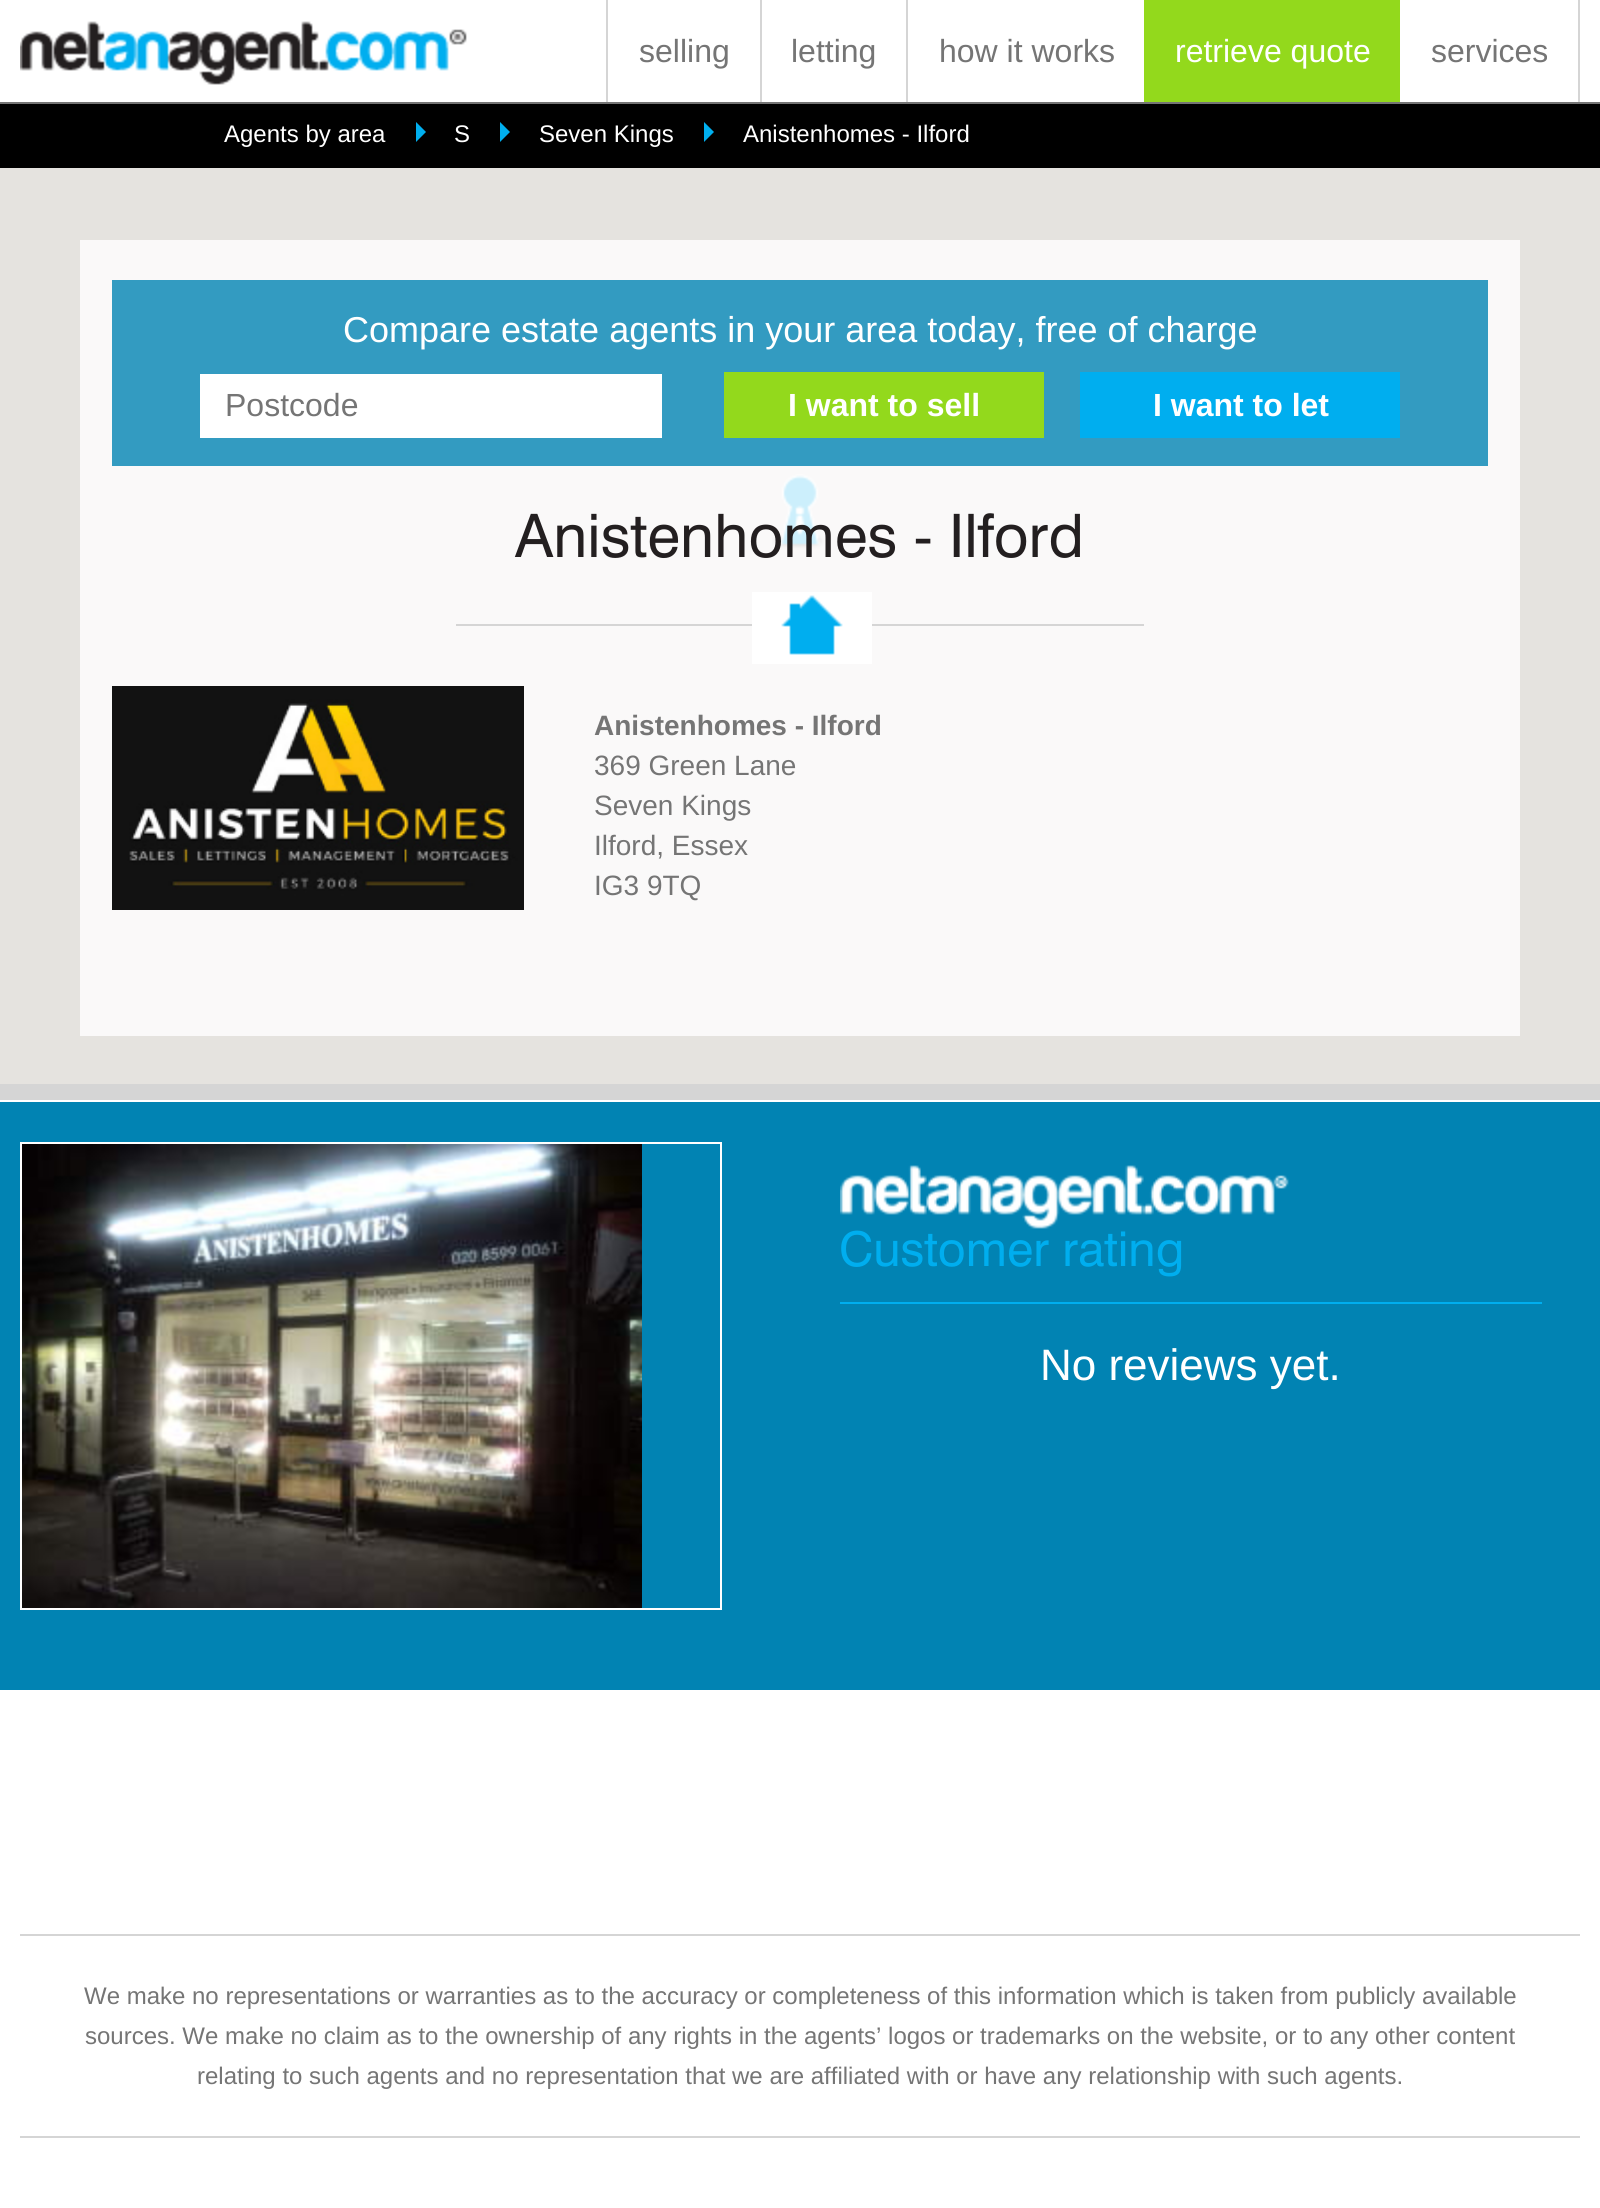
#include <cairo.h>
#include <math.h>
#include <stddef.h>


static void picture(cairo_t *cr, const char *path, double x, double y, double w, double h) {
    cairo_surface_t *image = cairo_image_surface_create_from_png(path);
    cairo_save(cr);
    cairo_set_source_surface(cr, image, x, y);
    cairo_rectangle(cr, x, y, w, h);
    cairo_fill(cr);
    cairo_restore(cr);
    cairo_surface_destroy(image);
}

int main(void) {
    cairo_surface_t *surface = cairo_image_surface_create(CAIRO_FORMAT_RGB24, 1600, 2208);
    cairo_t *cr = cairo_create(surface);
    cairo_font_options_t *options = cairo_font_options_create();
    cairo_font_options_set_hint_metrics(options, CAIRO_HINT_METRICS_OFF);
    cairo_font_options_set_hint_style(options, CAIRO_HINT_STYLE_NONE);
    cairo_set_font_options(cr, options);
    cairo_set_miter_limit(cr, 4);
    cairo_set_source_rgb(cr, 1, 1, 1);
    cairo_paint(cr);
    cairo_set_source_rgb(cr, 0.459, 0.459, 0.459);
    cairo_rectangle(cr, 0, 102, 1600, 2);
    cairo_fill(cr);
    picture(cr, "img1.png", 20, 21, 447, 64);
    cairo_set_source_rgb(cr, 0.835, 0.835, 0.835);
    cairo_rectangle(cr, 606, 0, 2, 102);
    cairo_fill(cr);
    cairo_select_font_face(cr, "Liberation Sans", CAIRO_FONT_SLANT_NORMAL, CAIRO_FONT_WEIGHT_NORMAL);
    cairo_set_font_size(cr, 32);
    cairo_set_source_rgb(cr, 0.459, 0.459, 0.459);
    cairo_move_to(cr, 639, 62);
    cairo_show_text(cr, "selling");
    cairo_set_source_rgb(cr, 0.835, 0.835, 0.835);
    cairo_rectangle(cr, 760, 0, 2, 102);
    cairo_fill(cr);
    cairo_set_source_rgb(cr, 0.459, 0.459, 0.459);
    cairo_move_to(cr, 791, 62);
    cairo_show_text(cr, "letting");
    cairo_set_source_rgb(cr, 0.835, 0.835, 0.835);
    cairo_rectangle(cr, 906, 0, 2, 102);
    cairo_fill(cr);
    cairo_set_source_rgb(cr, 0.459, 0.459, 0.459);
    cairo_move_to(cr, 939, 62);
    cairo_show_text(cr, "how it works");
    cairo_set_source_rgb(cr, 0.576, 0.851, 0.11);
    cairo_rectangle(cr, 1144, 0, 256, 102);
    cairo_fill(cr);
    cairo_set_source_rgb(cr, 1, 1, 1);
    cairo_move_to(cr, 1175, 62);
    cairo_show_text(cr, "retrieve quote");
    cairo_set_source_rgb(cr, 0.835, 0.835, 0.835);
    cairo_rectangle(cr, 1578, 0, 2, 102);
    cairo_fill(cr);
    cairo_set_source_rgb(cr, 0.459, 0.459, 0.459);
    cairo_move_to(cr, 1431, 62);
    cairo_show_text(cr, "services");
    cairo_set_source_rgb(cr, 0, 0, 0);
    cairo_rectangle(cr, 0, 104, 1600, 64);
    cairo_fill(cr);
    cairo_set_font_size(cr, 24);
    cairo_set_source_rgb(cr, 1, 1, 1);
    cairo_move_to(cr, 224, 142);
    cairo_show_text(cr, "Agents by area");
    cairo_set_source_rgb(cr, 0, 0.686, 0.937);
    cairo_new_path(cr);
    cairo_move_to(cr, 416, 142);
    cairo_line_to(cr, 416, 122);
    cairo_line_to(cr, 426, 132);
    cairo_close_path(cr);
    cairo_fill(cr);
    cairo_set_source_rgb(cr, 1, 1, 1);
    cairo_move_to(cr, 454, 142);
    cairo_show_text(cr, "S");
    cairo_set_source_rgb(cr, 0, 0.686, 0.937);
    cairo_new_path(cr);
    cairo_move_to(cr, 500, 142);
    cairo_line_to(cr, 500, 122);
    cairo_line_to(cr, 510, 132);
    cairo_close_path(cr);
    cairo_fill(cr);
    cairo_set_source_rgb(cr, 1, 1, 1);
    cairo_move_to(cr, 539, 142);
    cairo_show_text(cr, "Seven Kings");
    cairo_set_source_rgb(cr, 0, 0.686, 0.937);
    cairo_new_path(cr);
    cairo_move_to(cr, 704, 142);
    cairo_line_to(cr, 704, 122);
    cairo_line_to(cr, 714, 132);
    cairo_close_path(cr);
    cairo_fill(cr);
    cairo_set_source_rgb(cr, 1, 1, 1);
    cairo_move_to(cr, 743, 142);
    cairo_show_text(cr, "Anistenhomes - Ilford");
    cairo_set_source_rgb(cr, 0.835, 0.835, 0.835);
    cairo_rectangle(cr, 0, 1084, 1600, 16);
    cairo_fill(cr);
    cairo_set_source_rgb(cr, 0.898, 0.89, 0.875);
    cairo_rectangle(cr, 0, 168, 1600, 916);
    cairo_fill(cr);
    cairo_set_source_rgb(cr, 0.98, 0.976, 0.976);
    cairo_rectangle(cr, 80, 240, 1440, 796);
    cairo_fill(cr);
    picture(cr, "img2.png", 772, 474, 53, 76);
    cairo_set_source_rgb(cr, 0.2, 0.608, 0.757);
    cairo_rectangle(cr, 112, 280, 1376, 186);
    cairo_fill(cr);
    cairo_set_font_size(cr, 36);
    cairo_set_source_rgb(cr, 1, 1, 1);
    cairo_move_to(cr, 343, 342);
    cairo_show_text(cr, "Compare estate agents in your area today, free of charge");
    cairo_rectangle(cr, 200, 374, 462, 64);
    cairo_fill(cr);
    cairo_set_font_size(cr, 32);
    cairo_set_source_rgb(cr, 0.459, 0.459, 0.459);
    cairo_move_to(cr, 225, 416);
    cairo_show_text(cr, "Postcode");
    cairo_set_source_rgb(cr, 0.576, 0.851, 0.11);
    cairo_rectangle(cr, 724, 372, 320, 66);
    cairo_fill(cr);
    cairo_select_font_face(cr, "Liberation Sans", CAIRO_FONT_SLANT_NORMAL, CAIRO_FONT_WEIGHT_BOLD);
    cairo_set_source_rgb(cr, 1, 1, 1);
    cairo_move_to(cr, 788, 416);
    cairo_show_text(cr, "I want to sell");
    cairo_set_source_rgb(cr, 0, 0.682, 0.937);
    cairo_rectangle(cr, 1080, 372, 320, 66);
    cairo_fill(cr);
    cairo_set_source_rgb(cr, 1, 1, 1);
    cairo_move_to(cr, 1153, 416);
    cairo_show_text(cr, "I want to let");
    cairo_select_font_face(cr, "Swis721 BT", CAIRO_FONT_SLANT_NORMAL, CAIRO_FONT_WEIGHT_NORMAL);
    cairo_set_font_size(cr, 60);
    cairo_set_source_rgb(cr, 0.137, 0.122, 0.125);
    cairo_move_to(cr, 515, 557);
    cairo_show_text(cr, "Anistenhomes - Ilford");
    cairo_set_source_rgb(cr, 0.835, 0.835, 0.835);
    cairo_rectangle(cr, 456, 624, 688, 2);
    cairo_fill(cr);
    cairo_set_source_rgb(cr, 1, 1, 1);
    cairo_rectangle(cr, 752, 592, 120, 72);
    cairo_fill(cr);
    picture(cr, "img3.png", 781, 595, 62, 60);
    picture(cr, "img4.png", 112, 686, 412, 224);
    cairo_select_font_face(cr, "Liberation Sans", CAIRO_FONT_SLANT_NORMAL, CAIRO_FONT_WEIGHT_BOLD);
    cairo_set_font_size(cr, 28);
    cairo_set_source_rgb(cr, 0.459, 0.459, 0.459);
    cairo_move_to(cr, 594, 735);
    cairo_show_text(cr, "Anistenhomes - Ilford");
    cairo_select_font_face(cr, "Liberation Sans", CAIRO_FONT_SLANT_NORMAL, CAIRO_FONT_WEIGHT_NORMAL);
    cairo_move_to(cr, 594, 775);
    cairo_show_text(cr, "369 Green Lane");
    cairo_move_to(cr, 594, 815);
    cairo_show_text(cr, "Seven Kings");
    cairo_move_to(cr, 594, 855);
    cairo_show_text(cr, "Ilford, Essex");
    cairo_move_to(cr, 594, 895);
    cairo_show_text(cr, "IG3 9TQ");
    cairo_set_source_rgb(cr, 0.004, 0.514, 0.702);
    cairo_rectangle(cr, 0, 1102, 1600, 588);
    cairo_fill(cr);
    cairo_rectangle(cr, 21, 1143, 700, 466);
    cairo_set_source_rgb(cr, 1, 1, 1);
    cairo_stroke(cr);
    picture(cr, "img5.png", 22, 1144, 620, 464);
    picture(cr, "img6.png", 840, 1165, 449, 64);
    cairo_set_source_rgb(cr, 0, 0.682, 0.937);
    cairo_rectangle(cr, 840, 1302, 702, 2);
    cairo_fill(cr);
    cairo_select_font_face(cr, "Swis721 BT", CAIRO_FONT_SLANT_NORMAL, CAIRO_FONT_WEIGHT_NORMAL);
    cairo_set_font_size(cr, 48);
    cairo_move_to(cr, 839, 1266);
    cairo_show_text(cr, "Customer rating");
    cairo_select_font_face(cr, "Liberation Sans", CAIRO_FONT_SLANT_NORMAL, CAIRO_FONT_WEIGHT_NORMAL);
    cairo_set_font_size(cr, 44);
    cairo_set_source_rgb(cr, 1, 1, 1);
    cairo_move_to(cr, 1040, 1380);
    cairo_show_text(cr, "No reviews yet.");
    cairo_set_source_rgb(cr, 0.835, 0.835, 0.835);
    cairo_rectangle(cr, 20, 1934, 1560, 2);
    cairo_fill(cr);
    cairo_rectangle(cr, 20, 2136, 1560, 2);
    cairo_fill(cr);
    cairo_set_font_size(cr, 24);
    cairo_set_source_rgb(cr, 0.459, 0.459, 0.459);
    cairo_move_to(cr, 84, 2004);
    cairo_show_text(cr, "We make no representations or warranties as to the accuracy or completeness of this information which is taken from publicly available");
    cairo_move_to(cr, 85, 2044);
    cairo_show_text(cr, "sources. We make no claim as to the ownership of any rights in the agents’ logos or trademarks on the website, or to any other content");
    cairo_move_to(cr, 197, 2084);
    cairo_show_text(cr, "relating to such agents and no representation that we are affiliated with or have any relationship with such agents.");
    cairo_surface_write_to_png(surface, "page.png");
    cairo_font_options_destroy(options);
    cairo_destroy(cr);
    cairo_surface_destroy(surface);
    return 0;
}
